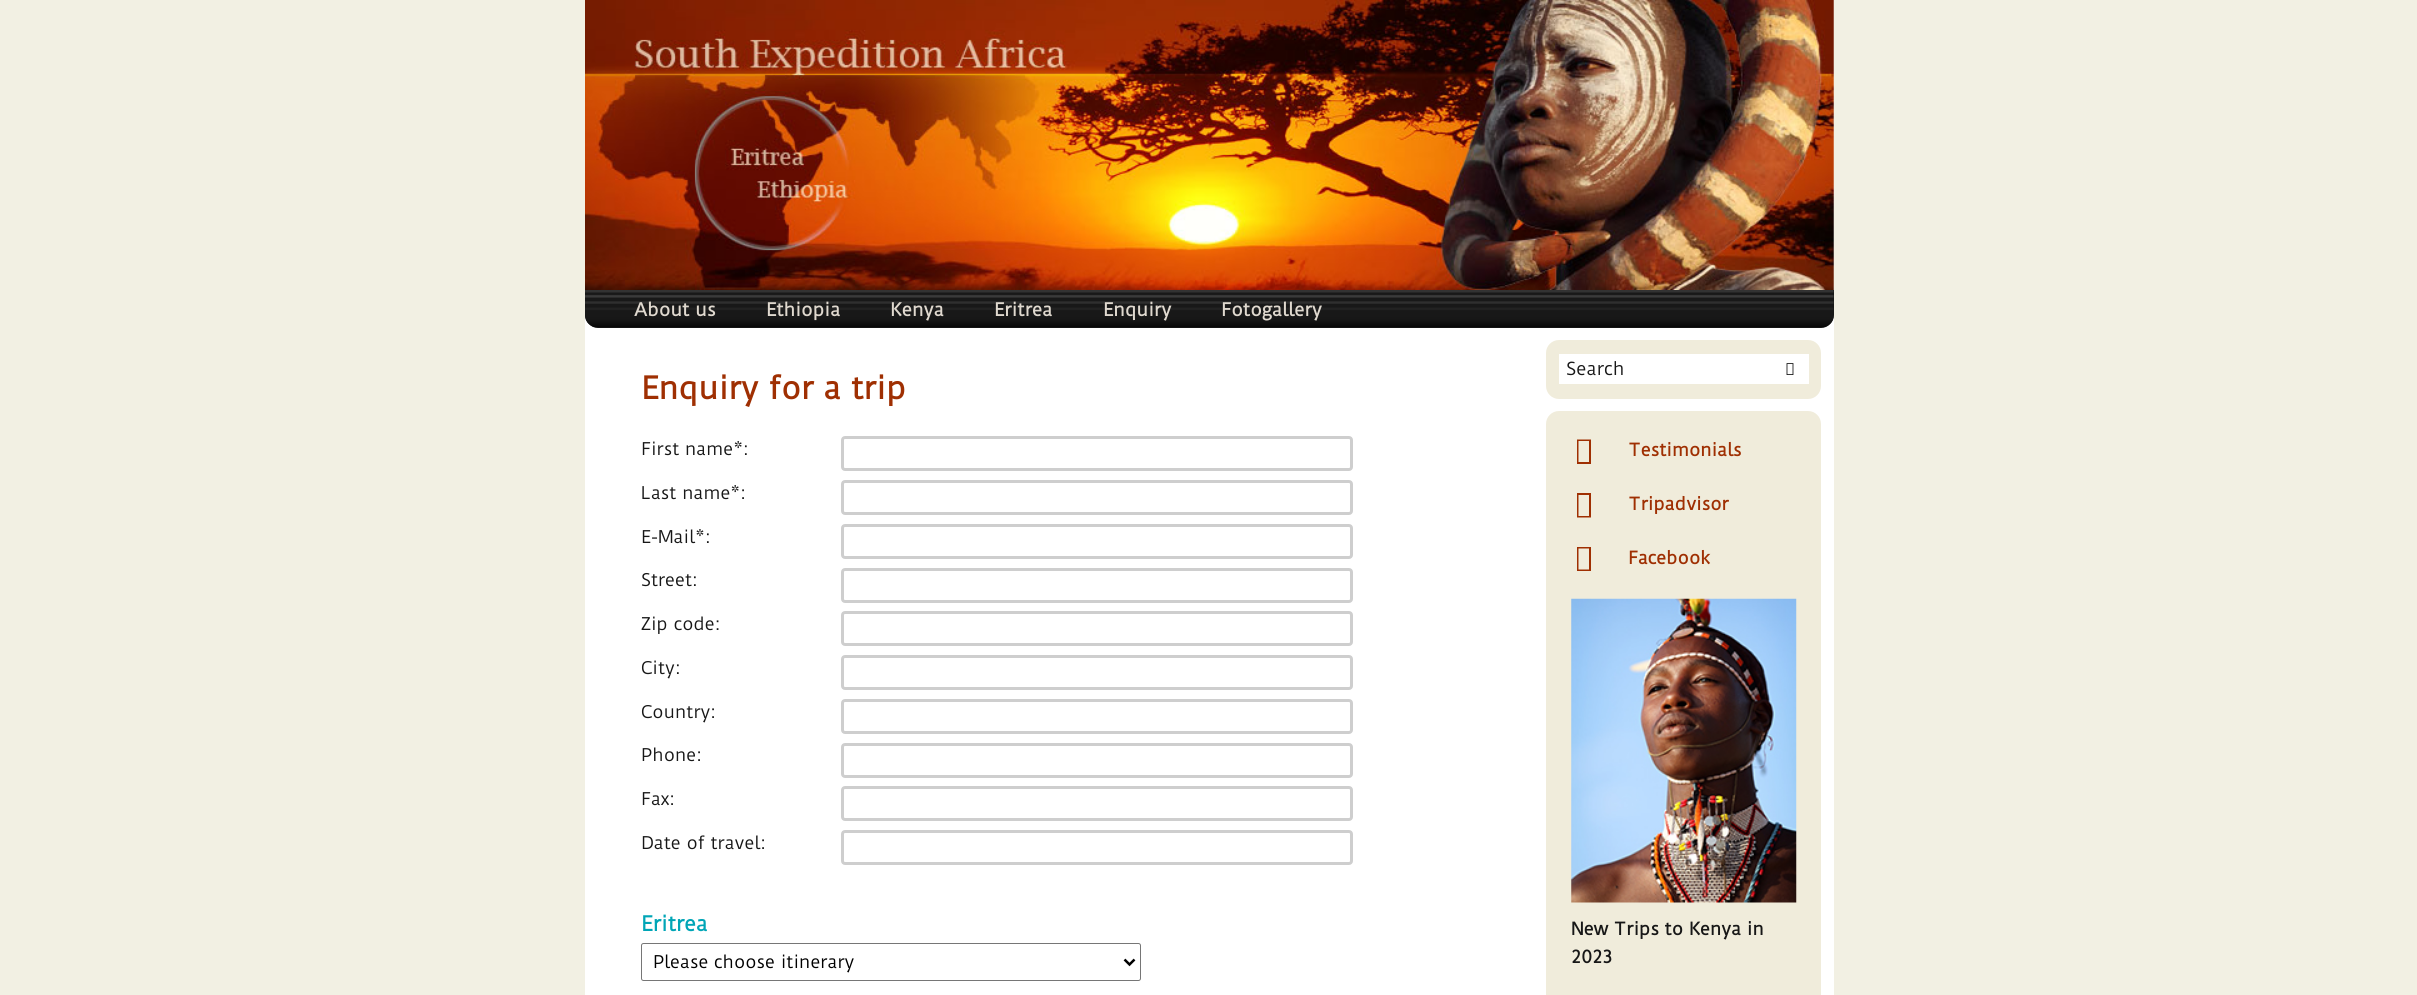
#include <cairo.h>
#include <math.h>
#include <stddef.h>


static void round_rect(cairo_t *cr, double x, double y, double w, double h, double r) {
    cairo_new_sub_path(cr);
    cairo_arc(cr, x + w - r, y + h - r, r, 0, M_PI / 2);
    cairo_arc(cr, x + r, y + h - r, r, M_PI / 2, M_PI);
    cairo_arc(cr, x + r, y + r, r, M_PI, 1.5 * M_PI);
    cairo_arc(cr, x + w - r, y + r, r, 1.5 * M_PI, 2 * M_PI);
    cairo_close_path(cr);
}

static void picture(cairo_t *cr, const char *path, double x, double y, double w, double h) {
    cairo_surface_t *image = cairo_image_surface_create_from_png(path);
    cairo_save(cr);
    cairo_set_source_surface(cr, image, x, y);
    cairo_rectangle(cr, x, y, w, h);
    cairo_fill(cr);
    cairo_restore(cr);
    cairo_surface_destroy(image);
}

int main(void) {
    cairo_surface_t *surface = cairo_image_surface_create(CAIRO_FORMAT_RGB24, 2417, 995);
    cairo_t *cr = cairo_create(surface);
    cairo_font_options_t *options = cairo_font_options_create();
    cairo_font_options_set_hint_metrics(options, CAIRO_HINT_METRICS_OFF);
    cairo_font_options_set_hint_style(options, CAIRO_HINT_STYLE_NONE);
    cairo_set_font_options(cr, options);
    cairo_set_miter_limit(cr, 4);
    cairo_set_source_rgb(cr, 0.949, 0.941, 0.89);
    cairo_paint(cr);
    cairo_set_source_rgb(cr, 1, 1, 1);
    cairo_rectangle(cr, 585, 0, 1249, 995);
    cairo_fill(cr);
    picture(cr, "img1.png", 585, 0, 1249, 290);
    cairo_set_source_rgb(cr, 0.094, 0.094, 0.094);
    cairo_new_path(cr);
    cairo_move_to(cr, 585, 290);
    cairo_line_to(cr, 1834, 290);
    cairo_line_to(cr, 1834, 315);
    cairo_curve_to(cr, 1834, 322, 1828, 328, 1821, 328);
    cairo_line_to(cr, 598, 328);
    cairo_curve_to(cr, 591, 328, 585, 322, 585, 315);
    cairo_close_path(cr);
    cairo_fill(cr);
    picture(cr, "img2.png", 585, 290, 1249, 38);
    cairo_select_font_face(cr, "Duru Sans", CAIRO_FONT_SLANT_NORMAL, CAIRO_FONT_WEIGHT_BOLD);
    cairo_set_font_size(cr, 17.5);
    cairo_set_source_rgb(cr, 0.878, 0.851, 0.812);
    cairo_move_to(cr, 634, 316);
    cairo_show_text(cr, "About us");
    cairo_move_to(cr, 766, 316);
    cairo_show_text(cr, "Ethiopia");
    cairo_move_to(cr, 890, 316);
    cairo_show_text(cr, "Kenya");
    cairo_move_to(cr, 994, 316);
    cairo_show_text(cr, "Eritrea");
    cairo_move_to(cr, 1103, 316);
    cairo_show_text(cr, "Enquiry");
    cairo_move_to(cr, 1221, 316);
    cairo_show_text(cr, "Fotogallery");
    cairo_set_font_size(cr, 30);
    cairo_set_source_rgb(cr, 0.624, 0.184, 0.008);
    cairo_move_to(cr, 641, 399);
    cairo_show_text(cr, "Enquiry for a trip");
    cairo_select_font_face(cr, "Duru Sans", CAIRO_FONT_SLANT_NORMAL, CAIRO_FONT_WEIGHT_NORMAL);
    cairo_set_font_size(cr, 17);
    cairo_set_source_rgb(cr, 0.09, 0.09, 0.09);
    cairo_move_to(cr, 641, 455);
    cairo_show_text(cr, "First name*:");
    round_rect(cr, 842.5, 437.5, 509, 32, 2.5);
    cairo_set_source_rgb(cr, 0.808, 0.808, 0.808);
    cairo_set_line_width(cr, 3);
    cairo_stroke(cr);
    cairo_set_source_rgb(cr, 0.09, 0.09, 0.09);
    cairo_move_to(cr, 641, 499);
    cairo_show_text(cr, "Last name*:");
    round_rect(cr, 842.5, 481.5, 509, 32, 2.5);
    cairo_set_source_rgb(cr, 0.808, 0.808, 0.808);
    cairo_stroke(cr);
    cairo_set_source_rgb(cr, 0.09, 0.09, 0.09);
    cairo_move_to(cr, 641, 543);
    cairo_show_text(cr, "E-Mail*:");
    round_rect(cr, 842.5, 525.5, 509, 32, 2.5);
    cairo_set_source_rgb(cr, 0.808, 0.808, 0.808);
    cairo_stroke(cr);
    cairo_set_source_rgb(cr, 0.09, 0.09, 0.09);
    cairo_move_to(cr, 641, 586);
    cairo_show_text(cr, "Street:");
    round_rect(cr, 842.5, 569.5, 509, 32, 2.5);
    cairo_set_source_rgb(cr, 0.808, 0.808, 0.808);
    cairo_stroke(cr);
    cairo_set_source_rgb(cr, 0.09, 0.09, 0.09);
    cairo_move_to(cr, 641, 630);
    cairo_show_text(cr, "Zip code:");
    round_rect(cr, 842.5, 612.5, 509, 32, 2.5);
    cairo_set_source_rgb(cr, 0.808, 0.808, 0.808);
    cairo_stroke(cr);
    cairo_set_source_rgb(cr, 0.09, 0.09, 0.09);
    cairo_move_to(cr, 641, 674);
    cairo_show_text(cr, "City:");
    round_rect(cr, 842.5, 656.5, 509, 32, 2.5);
    cairo_set_source_rgb(cr, 0.808, 0.808, 0.808);
    cairo_stroke(cr);
    cairo_set_source_rgb(cr, 0.09, 0.09, 0.09);
    cairo_move_to(cr, 641, 718);
    cairo_show_text(cr, "Country:");
    round_rect(cr, 842.5, 700.5, 509, 32, 2.5);
    cairo_set_source_rgb(cr, 0.808, 0.808, 0.808);
    cairo_stroke(cr);
    cairo_set_source_rgb(cr, 0.09, 0.09, 0.09);
    cairo_move_to(cr, 641, 761);
    cairo_show_text(cr, "Phone:");
    round_rect(cr, 842.5, 744.5, 509, 32, 2.5);
    cairo_set_source_rgb(cr, 0.808, 0.808, 0.808);
    cairo_stroke(cr);
    cairo_set_source_rgb(cr, 0.09, 0.09, 0.09);
    cairo_move_to(cr, 641, 805);
    cairo_show_text(cr, "Fax:");
    round_rect(cr, 842.5, 787.5, 509, 32, 2.5);
    cairo_set_source_rgb(cr, 0.808, 0.808, 0.808);
    cairo_stroke(cr);
    cairo_set_source_rgb(cr, 0.09, 0.09, 0.09);
    cairo_move_to(cr, 641, 849);
    cairo_show_text(cr, "Date of travel:");
    round_rect(cr, 842.5, 831.5, 509, 32, 2.5);
    cairo_set_source_rgb(cr, 0.808, 0.808, 0.808);
    cairo_stroke(cr);
    cairo_select_font_face(cr, "Duru Sans", CAIRO_FONT_SLANT_NORMAL, CAIRO_FONT_WEIGHT_BOLD);
    cairo_set_font_size(cr, 20);
    cairo_set_source_rgb(cr, 0, 0.647, 0.714);
    cairo_move_to(cr, 641, 931);
    cairo_show_text(cr, "Eritrea");
    round_rect(cr, 641.5, 943.5, 499, 37, 2);
    cairo_set_source_rgb(cr, 0.463, 0.463, 0.463);
    cairo_set_line_width(cr, 1);
    cairo_stroke(cr);
    cairo_new_path(cr);
    cairo_move_to(cr, 1124.5, 959.5);
    cairo_line_to(cr, 1129.5, 964.5);
    cairo_line_to(cr, 1134.5, 959.5);
    cairo_set_source_rgb(cr, 0, 0, 0);
    cairo_set_line_width(cr, 2.5);
    cairo_stroke(cr);
    cairo_select_font_face(cr, "Duru Sans", CAIRO_FONT_SLANT_NORMAL, CAIRO_FONT_WEIGHT_NORMAL);
    cairo_set_font_size(cr, 17);
    cairo_move_to(cr, 653, 968);
    cairo_show_text(cr, "Please choose itinerary");
    cairo_set_source_rgb(cr, 0.941, 0.922, 0.859);
    round_rect(cr, 1546, 340, 275, 59, 13);
    cairo_fill(cr);
    cairo_set_source_rgb(cr, 1, 1, 1);
    cairo_rectangle(cr, 1559, 354, 250, 30);
    cairo_fill(cr);
    cairo_set_font_size(cr, 17.5);
    cairo_set_source_rgb(cr, 0.09, 0.09, 0.09);
    cairo_move_to(cr, 1566, 375);
    cairo_show_text(cr, "Search");
    picture(cr, "img3.png", 1786, 363, 8, 12);
    cairo_set_source_rgb(cr, 0.941, 0.922, 0.859);
    round_rect(cr, 1546, 411, 275, 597, 13);
    cairo_fill(cr);
    cairo_set_source_rgb(cr, 0.624, 0.184, 0.008);
    cairo_new_path(cr);
    cairo_move_to(cr, 1577, 464);
    cairo_line_to(cr, 1577, 439.5);
    cairo_line_to(cr, 1591, 439.5);
    cairo_line_to(cr, 1591, 464);
    cairo_close_path(cr);
    cairo_move_to(cr, 1578.5, 462);
    cairo_line_to(cr, 1589, 462);
    cairo_line_to(cr, 1589, 441);
    cairo_line_to(cr, 1578.5, 441);
    cairo_close_path(cr);
    cairo_fill(cr);
    cairo_select_font_face(cr, "Duru Sans", CAIRO_FONT_SLANT_NORMAL, CAIRO_FONT_WEIGHT_BOLD);
    cairo_set_font_size(cr, 17);
    cairo_move_to(cr, 1628, 456);
    cairo_show_text(cr, "Testimonials");
    cairo_new_path(cr);
    cairo_move_to(cr, 1577, 517.5);
    cairo_line_to(cr, 1577, 493);
    cairo_line_to(cr, 1591, 493);
    cairo_line_to(cr, 1591, 517.5);
    cairo_close_path(cr);
    cairo_move_to(cr, 1578.5, 516);
    cairo_line_to(cr, 1589, 516);
    cairo_line_to(cr, 1589, 495);
    cairo_line_to(cr, 1578.5, 495);
    cairo_close_path(cr);
    cairo_fill(cr);
    cairo_move_to(cr, 1628, 510);
    cairo_show_text(cr, "Tripadvisor");
    cairo_new_path(cr);
    cairo_move_to(cr, 1577, 571);
    cairo_line_to(cr, 1577, 547);
    cairo_line_to(cr, 1591, 547);
    cairo_line_to(cr, 1591, 571);
    cairo_close_path(cr);
    cairo_move_to(cr, 1578.5, 569.5);
    cairo_line_to(cr, 1589, 569.5);
    cairo_line_to(cr, 1589, 548.5);
    cairo_line_to(cr, 1578.5, 548.5);
    cairo_close_path(cr);
    cairo_fill(cr);
    cairo_move_to(cr, 1628, 564);
    cairo_show_text(cr, "Facebook");
    picture(cr, "img4.png", 1571, 598, 226, 305);
    cairo_set_source_rgb(cr, 0.09, 0.09, 0.09);
    cairo_move_to(cr, 1571, 935);
    cairo_show_text(cr, "New Trips to Kenya in");
    cairo_move_to(cr, 1571, 963);
    cairo_show_text(cr, "2023");
    cairo_surface_write_to_png(surface, "page.png");
    cairo_font_options_destroy(options);
    cairo_destroy(cr);
    cairo_surface_destroy(surface);
    return 0;
}
